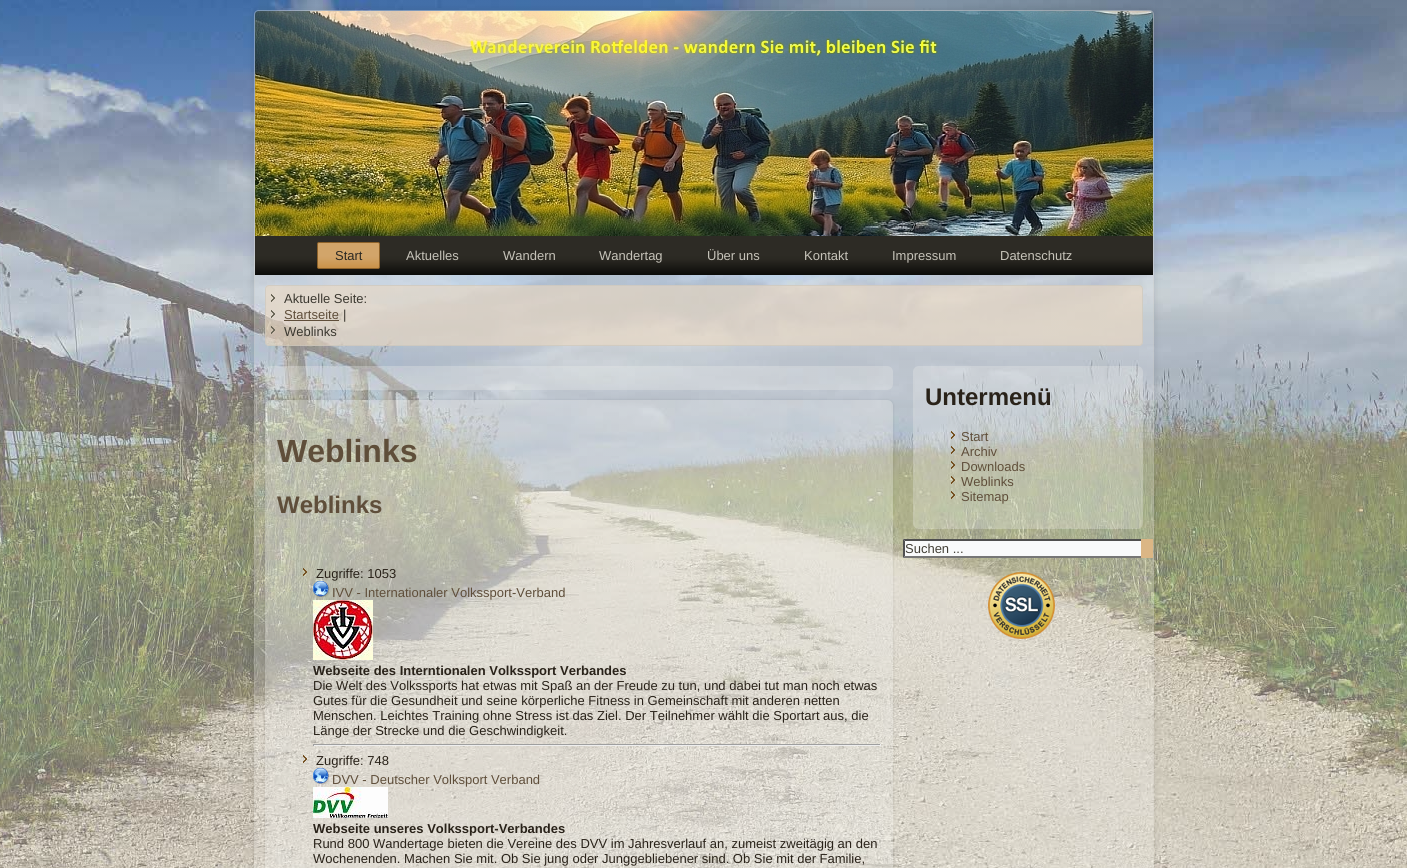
#include <cairo.h>
#include <math.h>
#include <stddef.h>


static void round_rect(cairo_t *cr, double x, double y, double w, double h, double r) {
    cairo_new_sub_path(cr);
    cairo_arc(cr, x + w - r, y + h - r, r, 0, M_PI / 2);
    cairo_arc(cr, x + r, y + h - r, r, M_PI / 2, M_PI);
    cairo_arc(cr, x + r, y + r, r, M_PI, 1.5 * M_PI);
    cairo_arc(cr, x + w - r, y + r, r, 1.5 * M_PI, 2 * M_PI);
    cairo_close_path(cr);
}

static void shadow(cairo_t *cr, double x, double y, double w, double h, double r, double blur, double alpha) {
    cairo_push_group_with_content(cr, CAIRO_CONTENT_ALPHA);
    cairo_set_operator(cr, CAIRO_OPERATOR_SOURCE);
    for (int i = 15; i >= -15 && fmin(w, h) + blur * i / 3 > 0; i -= 2) {
        double e = blur * i / 6;
        cairo_set_source_rgba(cr, 0, 0, 0, alpha * erfc((i - 1) / 8.5) / 2);
        round_rect(cr, x - e, y - e, w + 2 * e, h + 2 * e, fmax(0, fmin(r + e + blur * .6, fmin(w, h) / 2 + e)));
        cairo_fill(cr);
    }
    cairo_pattern_t *soft = cairo_pop_group(cr);
    cairo_mask(cr, soft);
    cairo_pattern_destroy(soft);
}

static void picture(cairo_t *cr, const char *path, double x, double y, double w, double h) {
    cairo_surface_t *image = cairo_image_surface_create_from_png(path);
    cairo_save(cr);
    cairo_set_source_surface(cr, image, x, y);
    cairo_rectangle(cr, x, y, w, h);
    cairo_fill(cr);
    cairo_restore(cr);
    cairo_surface_destroy(image);
}

int main(void) {
    cairo_surface_t *surface = cairo_image_surface_create(CAIRO_FORMAT_RGB24, 1407, 868);
    cairo_t *cr = cairo_create(surface);
    cairo_font_options_t *options = cairo_font_options_create();
    cairo_font_options_set_hint_metrics(options, CAIRO_HINT_METRICS_OFF);
    cairo_font_options_set_hint_style(options, CAIRO_HINT_STYLE_NONE);
    cairo_set_font_options(cr, options);
    cairo_set_miter_limit(cr, 4);
    cairo_pattern_t *gradient;
    cairo_set_source_rgb(cr, 1, 1, 1);
    cairo_paint(cr);
    picture(cr, "img1.png", 0, 0, 1407, 868);
    cairo_save(cr);
    cairo_set_fill_rule(cr, CAIRO_FILL_RULE_EVEN_ODD);
    cairo_new_path(cr);
    cairo_move_to(cr, 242, 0);
    cairo_line_to(cr, 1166, 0);
    cairo_line_to(cr, 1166, 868);
    cairo_line_to(cr, 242, 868);
    cairo_close_path(cr);
    cairo_move_to(cr, 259, 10);
    cairo_line_to(cr, 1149, 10);
    cairo_curve_to(cr, 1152, 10, 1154, 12, 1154, 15);
    cairo_line_to(cr, 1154, 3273);
    cairo_line_to(cr, 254, 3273);
    cairo_line_to(cr, 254, 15);
    cairo_curve_to(cr, 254, 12, 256, 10, 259, 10);
    cairo_close_path(cr);
    cairo_clip(cr);
    cairo_set_source_rgb(cr, 0, 0, 0);
    shadow(cr, 251, 7, 906, 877, 8, 2.5, 0.06);
    cairo_restore(cr);
    cairo_set_source_rgba(cr, 1, 1, 1, 0.2);
    cairo_new_path(cr);
    cairo_move_to(cr, 259, 10);
    cairo_line_to(cr, 1149, 10);
    cairo_curve_to(cr, 1152, 10, 1154, 12, 1154, 15);
    cairo_line_to(cr, 1154, 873);
    cairo_line_to(cr, 254, 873);
    cairo_line_to(cr, 254, 15);
    cairo_curve_to(cr, 254, 12, 256, 10, 259, 10);
    cairo_close_path(cr);
    cairo_fill(cr);
    cairo_set_source_rgba(cr, 0.784, 0.773, 0.737, 0.2);
    cairo_set_fill_rule(cr, CAIRO_FILL_RULE_EVEN_ODD);
    cairo_new_path(cr);
    cairo_move_to(cr, 259, 10);
    cairo_line_to(cr, 1149, 10);
    cairo_curve_to(cr, 1152, 10, 1154, 12, 1154, 15);
    cairo_line_to(cr, 1154, 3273);
    cairo_line_to(cr, 254, 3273);
    cairo_line_to(cr, 254, 15);
    cairo_curve_to(cr, 254, 12, 256, 10, 259, 10);
    cairo_close_path(cr);
    cairo_move_to(cr, 259, 11);
    cairo_line_to(cr, 1149, 11);
    cairo_curve_to(cr, 1151, 11, 1153, 13, 1153, 15);
    cairo_line_to(cr, 1153, 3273);
    cairo_line_to(cr, 255, 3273);
    cairo_line_to(cr, 255, 15);
    cairo_curve_to(cr, 255, 13, 257, 11, 259, 11);
    cairo_close_path(cr);
    cairo_fill(cr);
    picture(cr, "img2.png", 255, 11, 898, 225);
    gradient = cairo_pattern_create_linear(704, 236, 704, 275);
    cairo_pattern_add_color_stop_rgba(gradient, 0, 0.176, 0.169, 0.145, 1);
    cairo_pattern_add_color_stop_rgba(gradient, 0.5, 0.176, 0.169, 0.145, 1);
    cairo_pattern_add_color_stop_rgba(gradient, 0.6, 0.165, 0.157, 0.133, 1);
    cairo_pattern_add_color_stop_rgba(gradient, 1, 0.043, 0.043, 0.035, 1);
    cairo_set_source(cr, gradient);
    cairo_pattern_destroy(gradient);
    cairo_rectangle(cr, 255, 236, 898, 39);
    cairo_fill(cr);
    gradient = cairo_pattern_create_linear(349, 242, 349, 269);
    cairo_pattern_add_color_stop_rgba(gradient, 0, 0.824, 0.647, 0.416, 1);
    cairo_pattern_add_color_stop_rgba(gradient, 0.5, 0.824, 0.647, 0.416, 1);
    cairo_pattern_add_color_stop_rgba(gradient, 0.6, 0.82, 0.639, 0.4, 1);
    cairo_pattern_add_color_stop_rgba(gradient, 1, 0.784, 0.565, 0.275, 1);
    cairo_set_source(cr, gradient);
    cairo_pattern_destroy(gradient);
    round_rect(cr, 317.5, 242.5, 62, 26, 1.5);
    cairo_fill_preserve(cr);
    cairo_set_source_rgb(cr, 0.553, 0.384, 0.165);
    cairo_set_line_width(cr, 1);
    cairo_stroke(cr);
    cairo_select_font_face(cr, "Liberation Sans", CAIRO_FONT_SLANT_NORMAL, CAIRO_FONT_WEIGHT_NORMAL);
    cairo_set_font_size(cr, 13);
    cairo_set_source_rgb(cr, 0.165, 0.157, 0.133);
    cairo_move_to(cr, 335, 260);
    cairo_show_text(cr, "Start");
    cairo_set_source_rgb(cr, 0.776, 0.765, 0.725);
    cairo_move_to(cr, 406, 260);
    cairo_show_text(cr, "Aktuelles");
    cairo_move_to(cr, 503, 260);
    cairo_show_text(cr, "Wandern");
    cairo_move_to(cr, 599, 260);
    cairo_show_text(cr, "Wandertag");
    cairo_move_to(cr, 707, 260);
    cairo_show_text(cr, "Über uns");
    cairo_move_to(cr, 804, 260);
    cairo_show_text(cr, "Kontakt");
    cairo_move_to(cr, 892, 260);
    cairo_show_text(cr, "Impressum");
    cairo_move_to(cr, 1000, 260);
    cairo_show_text(cr, "Datenschutz");
    cairo_set_source_rgba(cr, 0.925, 0.851, 0.753, 0.6);
    round_rect(cr, 265, 285, 878, 61, 4);
    cairo_fill(cr);
    round_rect(cr, 265.5, 285.5, 877, 60, 3.5);
    cairo_set_source_rgba(cr, 0.784, 0.773, 0.737, 0.6);
    cairo_stroke(cr);
    picture(cr, "img3.png", 271, 294, 4, 8);
    cairo_set_source_rgb(cr, 0.231, 0.22, 0.188);
    cairo_move_to(cr, 284, 303);
    cairo_show_text(cr, "Aktuelle Seite:");
    picture(cr, "img4.png", 271, 310, 4, 8);
    cairo_set_source_rgb(cr, 0.373, 0.306, 0.227);
    cairo_move_to(cr, 284, 319);
    cairo_show_text(cr, "Startseite");
    cairo_rectangle(cr, 284, 320, 55, 1);
    cairo_fill(cr);
    cairo_set_source_rgb(cr, 0.231, 0.22, 0.188);
    cairo_move_to(cr, 343, 319);
    cairo_show_text(cr, "|");
    picture(cr, "img5.png", 271, 326, 4, 8);
    cairo_move_to(cr, 284, 336);
    cairo_show_text(cr, "Weblinks");
    cairo_set_source_rgba(cr, 0.937, 0.933, 0.922, 0.3);
    round_rect(cr, 265, 366, 628, 24, 6);
    cairo_fill(cr);
    cairo_save(cr);
    cairo_new_path(cr);
    cairo_move_to(cr, 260, 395);
    cairo_line_to(cr, 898, 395);
    cairo_line_to(cr, 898, 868);
    cairo_line_to(cr, 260, 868);
    cairo_close_path(cr);
    cairo_move_to(cr, 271, 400);
    cairo_line_to(cr, 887, 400);
    cairo_curve_to(cr, 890.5, 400, 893, 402.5, 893, 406);
    cairo_line_to(cr, 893, 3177);
    cairo_curve_to(cr, 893, 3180.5, 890.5, 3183, 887, 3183);
    cairo_line_to(cr, 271, 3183);
    cairo_curve_to(cr, 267.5, 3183, 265, 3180.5, 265, 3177);
    cairo_line_to(cr, 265, 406);
    cairo_curve_to(cr, 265, 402.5, 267.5, 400, 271, 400);
    cairo_close_path(cr);
    cairo_clip(cr);
    cairo_set_source_rgb(cr, 0, 0, 0);
    shadow(cr, 264, 399, 630, 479, 7, 1, 0.06);
    cairo_restore(cr);
    round_rect(cr, 265, 400, 628, 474, 6);
    cairo_fill(cr);
    cairo_select_font_face(cr, "Liberation Sans", CAIRO_FONT_SLANT_NORMAL, CAIRO_FONT_WEIGHT_BOLD);
    cairo_set_font_size(cr, 32);
    cairo_set_source_rgb(cr, 0.373, 0.306, 0.227);
    cairo_move_to(cr, 277, 462);
    cairo_show_text(cr, "Weblinks");
    cairo_set_font_size(cr, 24);
    cairo_move_to(cr, 277, 513);
    cairo_show_text(cr, "Weblinks");
    picture(cr, "img6.png", 303, 568, 4, 8);
    cairo_select_font_face(cr, "Liberation Sans", CAIRO_FONT_SLANT_NORMAL, CAIRO_FONT_WEIGHT_NORMAL);
    cairo_set_font_size(cr, 13);
    cairo_set_source_rgb(cr, 0.161, 0.133, 0.098);
    cairo_move_to(cr, 316, 578);
    cairo_show_text(cr, "Zugriffe: 1053");
    picture(cr, "img7.png", 313, 581, 16, 16);
    cairo_set_source_rgb(cr, 0.373, 0.306, 0.227);
    cairo_move_to(cr, 332, 597);
    cairo_show_text(cr, "IVV - Internationaler Volkssport-Verband");
    picture(cr, "img8.png", 313, 600, 60, 60);
    cairo_select_font_face(cr, "Liberation Sans", CAIRO_FONT_SLANT_NORMAL, CAIRO_FONT_WEIGHT_BOLD);
    cairo_set_source_rgb(cr, 0.161, 0.133, 0.098);
    cairo_move_to(cr, 313, 675);
    cairo_show_text(cr, "Webseite des Interntionalen Volkssport Verbandes");
    cairo_select_font_face(cr, "Liberation Sans", CAIRO_FONT_SLANT_NORMAL, CAIRO_FONT_WEIGHT_NORMAL);
    cairo_move_to(cr, 313, 690);
    cairo_show_text(cr, "Die Welt des Volkssports hat etwas mit Spaß an der Freude zu tun, und dabei tut man noch etwas");
    cairo_move_to(cr, 313, 705);
    cairo_show_text(cr, "Gutes für die Gesundheit und seine körperliche Fitness in Gemeinschaft mit anderen netten");
    cairo_move_to(cr, 313, 720);
    cairo_show_text(cr, "Menschen. Leichtes Training ohne Stress ist das Ziel. Der Teilnehmer wählt die Sportart aus, die");
    cairo_move_to(cr, 313, 735);
    cairo_show_text(cr, "Länge der Strecke und die Geschwindigkeit.");
    cairo_set_source_rgb(cr, 0.624, 0.624, 0.624);
    cairo_rectangle(cr, 313, 744, 568, 1);
    cairo_fill(cr);
    cairo_set_source_rgb(cr, 0.933, 0.933, 0.933);
    cairo_rectangle(cr, 880, 744, 1, 2);
    cairo_fill(cr);
    cairo_rectangle(cr, 313, 745, 568, 1);
    cairo_fill(cr);
    cairo_set_source_rgb(cr, 0.624, 0.624, 0.624);
    cairo_rectangle(cr, 313, 744, 1, 2);
    cairo_fill(cr);
    picture(cr, "img9.png", 303, 755, 4, 8);
    cairo_set_source_rgb(cr, 0.161, 0.133, 0.098);
    cairo_move_to(cr, 316, 765);
    cairo_show_text(cr, "Zugriffe: 748");
    picture(cr, "img10.png", 313, 768, 16, 16);
    cairo_set_source_rgb(cr, 0.373, 0.306, 0.227);
    cairo_move_to(cr, 332, 784);
    cairo_show_text(cr, "DVV - Deutscher Volksport Verband");
    picture(cr, "img11.png", 313, 787, 75, 31);
    cairo_select_font_face(cr, "Liberation Sans", CAIRO_FONT_SLANT_NORMAL, CAIRO_FONT_WEIGHT_BOLD);
    cairo_set_source_rgb(cr, 0.161, 0.133, 0.098);
    cairo_move_to(cr, 313, 833);
    cairo_show_text(cr, "Webseite unseres Volkssport-Verbandes");
    cairo_select_font_face(cr, "Liberation Sans", CAIRO_FONT_SLANT_NORMAL, CAIRO_FONT_WEIGHT_NORMAL);
    cairo_move_to(cr, 313, 848);
    cairo_show_text(cr, "Rund 800 Wandertage bieten die Vereine des DVV im Jahresverlauf an, zumeist zweitägig an den");
    cairo_move_to(cr, 313, 863);
    cairo_show_text(cr, "Wochenenden. Machen Sie mit. Ob Sie jung oder Junggebliebener sind. Ob Sie mit der Familie,");
    cairo_set_source_rgba(cr, 0.937, 0.933, 0.922, 0.3);
    round_rect(cr, 913, 366, 230, 163, 6);
    cairo_fill(cr);
    cairo_select_font_face(cr, "Liberation Sans", CAIRO_FONT_SLANT_NORMAL, CAIRO_FONT_WEIGHT_BOLD);
    cairo_set_font_size(cr, 24);
    cairo_set_source_rgb(cr, 0.161, 0.133, 0.098);
    cairo_move_to(cr, 925, 405);
    cairo_show_text(cr, "Untermenü");
    picture(cr, "img12.png", 951, 431, 4, 8);
    cairo_select_font_face(cr, "Liberation Sans", CAIRO_FONT_SLANT_NORMAL, CAIRO_FONT_WEIGHT_NORMAL);
    cairo_set_font_size(cr, 13);
    cairo_set_source_rgb(cr, 0.373, 0.306, 0.227);
    cairo_move_to(cr, 961, 441);
    cairo_show_text(cr, "Start");
    picture(cr, "img13.png", 951, 446, 4, 8);
    cairo_move_to(cr, 961, 456);
    cairo_show_text(cr, "Archiv");
    picture(cr, "img14.png", 951, 461, 4, 8);
    cairo_move_to(cr, 961, 471);
    cairo_show_text(cr, "Downloads");
    picture(cr, "img15.png", 951, 476, 4, 8);
    cairo_move_to(cr, 961, 486);
    cairo_show_text(cr, "Weblinks");
    picture(cr, "img16.png", 951, 491, 4, 8);
    cairo_move_to(cr, 961, 501);
    cairo_show_text(cr, "Sitemap");
    cairo_set_source_rgb(cr, 0.976, 0.98, 0.984);
    cairo_rectangle(cr, 903, 539, 238, 19);
    cairo_fill(cr);
    cairo_set_source_rgb(cr, 0.31, 0.31, 0.31);
    cairo_set_fill_rule(cr, CAIRO_FILL_RULE_WINDING);
    cairo_new_path(cr);
    cairo_move_to(cr, 903, 539);
    cairo_line_to(cr, 1153, 539);
    cairo_line_to(cr, 1151, 541);
    cairo_line_to(cr, 905, 541);
    cairo_close_path(cr);
    cairo_fill(cr);
    cairo_set_source_rgb(cr, 0.463, 0.463, 0.463);
    cairo_new_path(cr);
    cairo_move_to(cr, 1153, 558);
    cairo_line_to(cr, 903, 558);
    cairo_line_to(cr, 905, 556);
    cairo_line_to(cr, 1151, 556);
    cairo_close_path(cr);
    cairo_fill(cr);
    cairo_set_source_rgb(cr, 0.31, 0.31, 0.31);
    cairo_new_path(cr);
    cairo_move_to(cr, 903, 558);
    cairo_line_to(cr, 903, 539);
    cairo_line_to(cr, 905, 541);
    cairo_line_to(cr, 905, 556);
    cairo_close_path(cr);
    cairo_fill(cr);
    cairo_set_source_rgb(cr, 0.263, 0.251, 0.216);
    cairo_move_to(cr, 905, 553);
    cairo_show_text(cr, "Suchen ...");
    cairo_set_source_rgb(cr, 0.859, 0.714, 0.522);
    cairo_rectangle(cr, 1141, 539, 12, 19);
    cairo_fill(cr);
    picture(cr, "img17.png", 988, 572, 67, 67);
    cairo_surface_write_to_png(surface, "page.png");
    cairo_font_options_destroy(options);
    cairo_destroy(cr);
    cairo_surface_destroy(surface);
    return 0;
}
